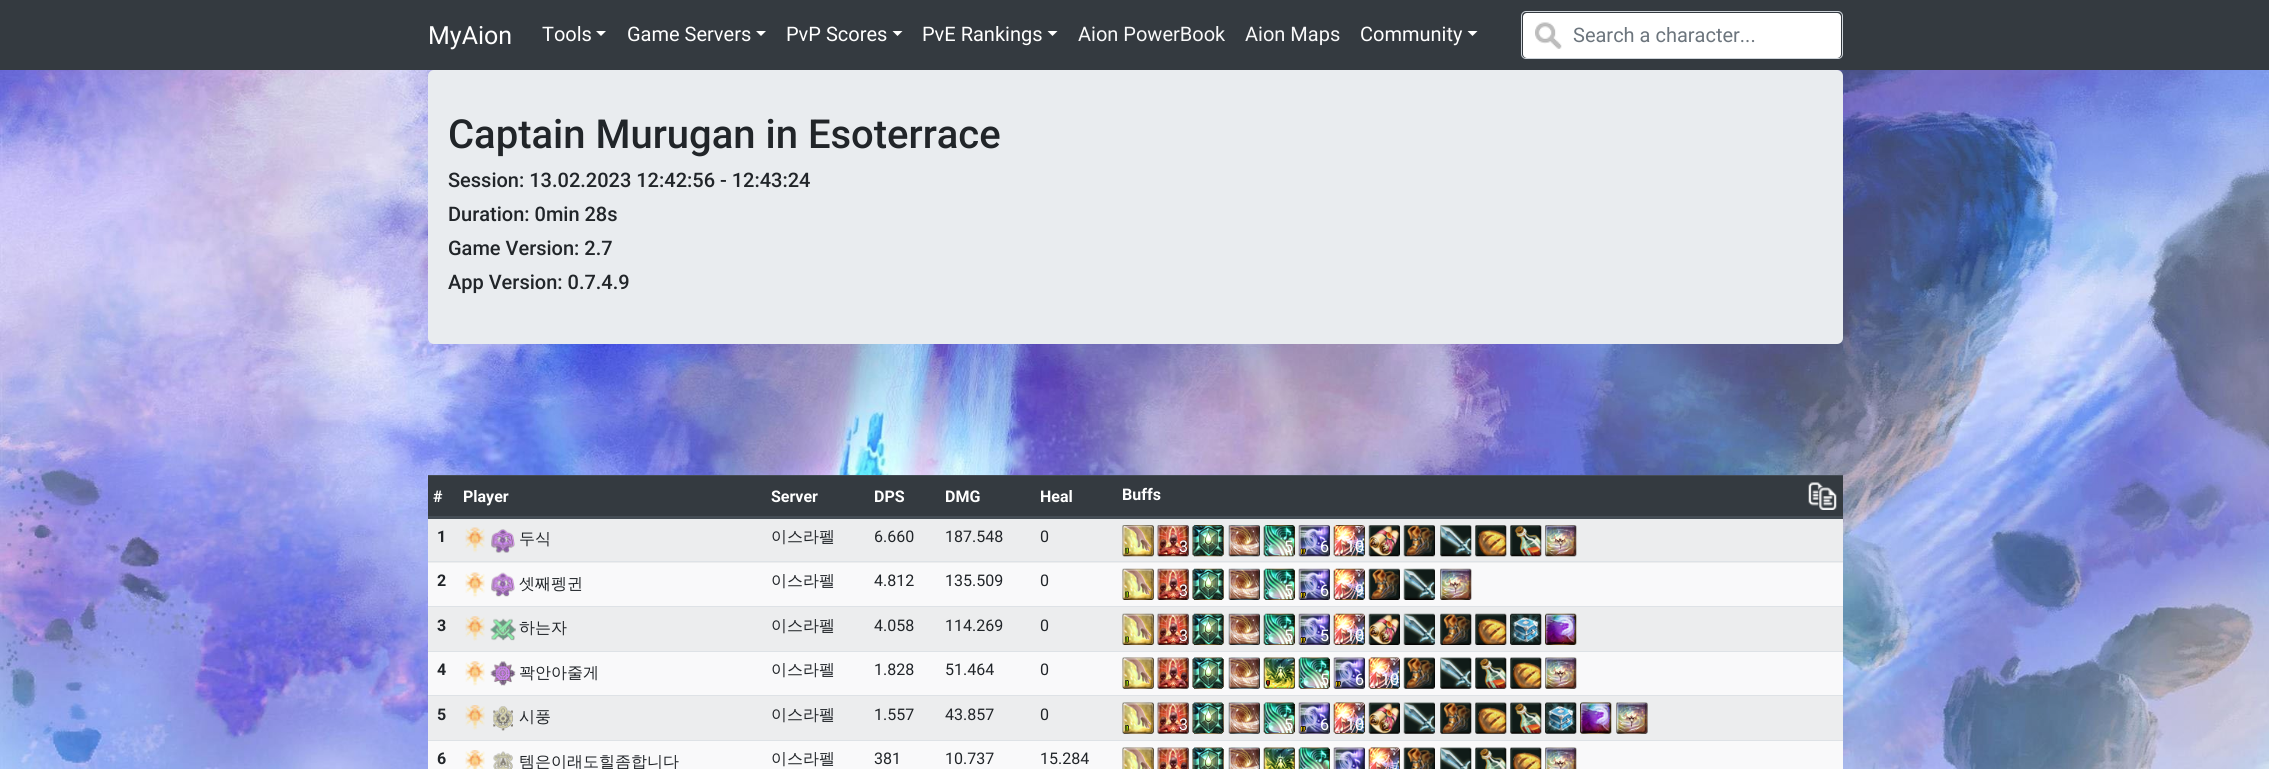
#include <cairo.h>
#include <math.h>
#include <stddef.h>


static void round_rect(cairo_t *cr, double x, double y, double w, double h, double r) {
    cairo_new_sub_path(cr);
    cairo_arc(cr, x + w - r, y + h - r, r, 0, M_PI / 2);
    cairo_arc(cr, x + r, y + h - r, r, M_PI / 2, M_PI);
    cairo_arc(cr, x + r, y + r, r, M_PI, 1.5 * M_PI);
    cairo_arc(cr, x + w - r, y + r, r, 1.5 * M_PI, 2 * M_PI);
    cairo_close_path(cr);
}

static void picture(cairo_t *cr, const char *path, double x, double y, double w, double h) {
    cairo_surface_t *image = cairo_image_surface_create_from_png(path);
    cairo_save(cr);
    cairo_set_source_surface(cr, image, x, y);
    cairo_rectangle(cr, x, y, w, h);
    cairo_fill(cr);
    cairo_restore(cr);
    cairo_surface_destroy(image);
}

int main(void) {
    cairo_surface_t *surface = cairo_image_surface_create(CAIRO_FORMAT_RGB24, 2269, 769);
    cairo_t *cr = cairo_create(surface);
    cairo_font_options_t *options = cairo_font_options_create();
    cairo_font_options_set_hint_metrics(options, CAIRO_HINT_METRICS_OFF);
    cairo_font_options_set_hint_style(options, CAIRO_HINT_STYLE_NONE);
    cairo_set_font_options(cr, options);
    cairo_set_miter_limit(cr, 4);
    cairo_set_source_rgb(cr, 1, 1, 1);
    cairo_paint(cr);
    picture(cr, "img1.png", 0, 70, 2269, 699);
    cairo_set_source_rgb(cr, 0.204, 0.227, 0.251);
    cairo_rectangle(cr, 0, 0, 2269, 70);
    cairo_fill(cr);
    cairo_select_font_face(cr, "Roboto", CAIRO_FONT_SLANT_NORMAL, CAIRO_FONT_WEIGHT_NORMAL);
    cairo_set_font_size(cr, 25);
    cairo_set_source_rgb(cr, 1, 1, 1);
    cairo_move_to(cr, 428, 44);
    cairo_show_text(cr, "MyAion");
    cairo_set_font_size(cr, 20);
    cairo_move_to(cr, 542, 41);
    cairo_show_text(cr, "Tools");
    cairo_new_path(cr);
    cairo_move_to(cr, 596, 31);
    cairo_line_to(cr, 606, 31);
    cairo_line_to(cr, 601, 36);
    cairo_close_path(cr);
    cairo_fill(cr);
    cairo_move_to(cr, 627, 41);
    cairo_show_text(cr, "Game Servers");
    cairo_new_path(cr);
    cairo_move_to(cr, 756, 31);
    cairo_line_to(cr, 766, 31);
    cairo_line_to(cr, 761, 36);
    cairo_close_path(cr);
    cairo_fill(cr);
    cairo_move_to(cr, 786, 41);
    cairo_show_text(cr, "PvP Scores");
    cairo_new_path(cr);
    cairo_move_to(cr, 892.5, 31);
    cairo_line_to(cr, 902.5, 31);
    cairo_line_to(cr, 897.5, 36);
    cairo_close_path(cr);
    cairo_fill(cr);
    cairo_move_to(cr, 922, 41);
    cairo_show_text(cr, "PvE Rankings");
    cairo_new_path(cr);
    cairo_move_to(cr, 1047.5, 31);
    cairo_line_to(cr, 1057.5, 31);
    cairo_line_to(cr, 1052.5, 36);
    cairo_close_path(cr);
    cairo_fill(cr);
    cairo_set_source_rgb(cr, 0.973, 0.976, 0.98);
    cairo_move_to(cr, 1078, 41);
    cairo_show_text(cr, "Aion PowerBook");
    cairo_move_to(cr, 1245, 41);
    cairo_show_text(cr, "Aion Maps");
    cairo_set_source_rgb(cr, 1, 1, 1);
    cairo_move_to(cr, 1360, 41);
    cairo_show_text(cr, "Community");
    cairo_new_path(cr);
    cairo_move_to(cr, 1467.5, 31);
    cairo_line_to(cr, 1477.5, 31);
    cairo_line_to(cr, 1472.5, 36);
    cairo_close_path(cr);
    cairo_fill(cr);
    round_rect(cr, 1523, 13, 318, 45, 4);
    cairo_fill(cr);
    picture(cr, "img2.png", 1535, 22, 27, 27);
    round_rect(cr, 1521.5, 11.5, 321, 47, 4.5);
    cairo_set_source_rgb(cr, 0.808, 0.831, 0.855);
    cairo_set_line_width(cr, 1);
    cairo_stroke(cr);
    cairo_set_source_rgb(cr, 0.424, 0.459, 0.49);
    cairo_move_to(cr, 1573, 42);
    cairo_show_text(cr, "Search a character...");
    cairo_set_source_rgb(cr, 0.914, 0.925, 0.937);
    round_rect(cr, 428, 70, 1415, 274, 6);
    cairo_fill(cr);
    cairo_select_font_face(cr, "Roboto Medium", CAIRO_FONT_SLANT_NORMAL, CAIRO_FONT_WEIGHT_NORMAL);
    cairo_set_font_size(cr, 40);
    cairo_set_source_rgb(cr, 0.129, 0.145, 0.161);
    cairo_move_to(cr, 448, 148);
    cairo_show_text(cr, "Captain Murugan in Esoterrace");
    cairo_set_font_size(cr, 20);
    cairo_move_to(cr, 448, 187);
    cairo_show_text(cr, "Session: 13.02.2023 12:42:56 - 12:43:24");
    cairo_move_to(cr, 448, 221);
    cairo_show_text(cr, "Duration: 0min 28s");
    cairo_move_to(cr, 448, 255);
    cairo_show_text(cr, "Game Version: 2.7");
    cairo_move_to(cr, 448, 289);
    cairo_show_text(cr, "App Version: 0.7.4.9");
    cairo_set_source_rgb(cr, 0.973, 0.976, 0.98);
    cairo_rectangle(cr, 428, 563, 1415, 206);
    cairo_fill(cr);
    cairo_set_source_rgb(cr, 0.204, 0.227, 0.251);
    cairo_rectangle(cr, 428, 476, 1415, 40);
    cairo_fill(cr);
    cairo_select_font_face(cr, "Roboto", CAIRO_FONT_SLANT_NORMAL, CAIRO_FONT_WEIGHT_BOLD);
    cairo_set_font_size(cr, 16);
    cairo_set_source_rgb(cr, 1, 1, 1);
    cairo_move_to(cr, 433, 502);
    cairo_show_text(cr, "#");
    cairo_move_to(cr, 463, 502);
    cairo_show_text(cr, "Player");
    cairo_move_to(cr, 771, 502);
    cairo_show_text(cr, "Server");
    cairo_move_to(cr, 874, 502);
    cairo_show_text(cr, "DPS");
    cairo_move_to(cr, 945, 502);
    cairo_show_text(cr, "DMG");
    cairo_move_to(cr, 1040, 502);
    cairo_show_text(cr, "Heal");
    cairo_set_source_rgb(cr, 0.271, 0.302, 0.333);
    cairo_rectangle(cr, 428, 475, 1415, 1);
    cairo_fill(cr);
    cairo_rectangle(cr, 428, 516, 1415, 3);
    cairo_fill(cr);
    cairo_set_source_rgb(cr, 1, 1, 1);
    cairo_move_to(cr, 1122, 500);
    cairo_show_text(cr, "Buffs");
    picture(cr, "img3.png", 1808, 482, 29, 28);
    cairo_set_source_rgb(cr, 0.925, 0.929, 0.933);
    cairo_rectangle(cr, 428, 519, 1415, 44);
    cairo_fill(cr);
    cairo_set_source_rgb(cr, 0.129, 0.145, 0.161);
    cairo_move_to(cr, 437, 542);
    cairo_show_text(cr, "1");
    picture(cr, "img4.png", 465, 527, 20, 26);
    picture(cr, "img5.png", 491, 529, 24, 24);
    cairo_select_font_face(cr, "WenQuanYi Zen Hei Medium", CAIRO_FONT_SLANT_NORMAL, CAIRO_FONT_WEIGHT_NORMAL);
    cairo_move_to(cr, 519, 544);
    cairo_show_text(cr, "두식");
    cairo_move_to(cr, 771, 542);
    cairo_show_text(cr, "이스라펠");
    cairo_select_font_face(cr, "Roboto", CAIRO_FONT_SLANT_NORMAL, CAIRO_FONT_WEIGHT_NORMAL);
    cairo_move_to(cr, 874, 542);
    cairo_show_text(cr, "6.660");
    cairo_move_to(cr, 945, 542);
    cairo_show_text(cr, "187.548");
    cairo_move_to(cr, 1040, 542);
    cairo_show_text(cr, "0");
    picture(cr, "img6.png", 1122, 525, 32, 32);
    picture(cr, "img7.png", 1157, 525, 32, 32);
    cairo_set_source_rgb(cr, 1, 1, 1);
    cairo_move_to(cr, 1179, 552);
    cairo_show_text(cr, "3");
    picture(cr, "img8.png", 1192, 525, 32, 32);
    picture(cr, "img9.png", 1228, 525, 32, 32);
    picture(cr, "img10.png", 1263, 525, 32, 32);
    cairo_move_to(cr, 1284, 552);
    cairo_show_text(cr, "5");
    picture(cr, "img11.png", 1298, 525, 32, 32);
    cairo_move_to(cr, 1320, 552);
    cairo_show_text(cr, "6");
    picture(cr, "img12.png", 1333, 525, 32, 32);
    cairo_move_to(cr, 1346, 552);
    cairo_show_text(cr, "10");
    picture(cr, "img13.png", 1368, 525, 32, 32);
    picture(cr, "img14.png", 1403, 525, 32, 32);
    picture(cr, "img15.png", 1440, 525, 32, 32);
    picture(cr, "img16.png", 1475, 525, 32, 32);
    picture(cr, "img17.png", 1510, 525, 32, 32);
    picture(cr, "img18.png", 1545, 525, 32, 32);
    cairo_select_font_face(cr, "Roboto", CAIRO_FONT_SLANT_NORMAL, CAIRO_FONT_WEIGHT_BOLD);
    cairo_set_source_rgb(cr, 0.129, 0.145, 0.161);
    cairo_move_to(cr, 437, 586);
    cairo_show_text(cr, "2");
    picture(cr, "img19.png", 465, 572, 20, 26);
    picture(cr, "img20.png", 491, 572, 24, 25);
    cairo_select_font_face(cr, "WenQuanYi Zen Hei Medium", CAIRO_FONT_SLANT_NORMAL, CAIRO_FONT_WEIGHT_NORMAL);
    cairo_move_to(cr, 519, 589);
    cairo_show_text(cr, "셋째펭귄");
    cairo_move_to(cr, 771, 586);
    cairo_show_text(cr, "이스라펠");
    cairo_select_font_face(cr, "Roboto", CAIRO_FONT_SLANT_NORMAL, CAIRO_FONT_WEIGHT_NORMAL);
    cairo_move_to(cr, 874, 586);
    cairo_show_text(cr, "4.812");
    cairo_move_to(cr, 945, 586);
    cairo_show_text(cr, "135.509");
    cairo_move_to(cr, 1040, 586);
    cairo_show_text(cr, "0");
    cairo_set_source_rgb(cr, 0.871, 0.886, 0.902);
    cairo_rectangle(cr, 428, 561, 1415, 1);
    cairo_fill(cr);
    picture(cr, "img21.png", 1122, 568, 32, 32);
    picture(cr, "img22.png", 1157, 568, 32, 32);
    cairo_set_source_rgb(cr, 1, 1, 1);
    cairo_move_to(cr, 1179, 596);
    cairo_show_text(cr, "3");
    picture(cr, "img23.png", 1192, 568, 32, 32);
    picture(cr, "img24.png", 1228, 568, 32, 32);
    picture(cr, "img25.png", 1263, 568, 32, 32);
    cairo_move_to(cr, 1284, 596);
    cairo_show_text(cr, "5");
    picture(cr, "img26.png", 1298, 568, 32, 32);
    cairo_move_to(cr, 1320, 596);
    cairo_show_text(cr, "6");
    picture(cr, "img27.png", 1333, 568, 32, 32);
    cairo_move_to(cr, 1355, 596);
    cairo_show_text(cr, "9");
    picture(cr, "img28.png", 1368, 568, 32, 32);
    picture(cr, "img29.png", 1403, 568, 32, 32);
    picture(cr, "img30.png", 1440, 568, 32, 32);
    cairo_set_source_rgb(cr, 0.925, 0.929, 0.933);
    cairo_rectangle(cr, 428, 607, 1415, 44);
    cairo_fill(cr);
    cairo_select_font_face(cr, "Roboto", CAIRO_FONT_SLANT_NORMAL, CAIRO_FONT_WEIGHT_BOLD);
    cairo_set_source_rgb(cr, 0.129, 0.145, 0.161);
    cairo_move_to(cr, 437, 631);
    cairo_show_text(cr, "3");
    picture(cr, "img31.png", 465, 616, 20, 25);
    picture(cr, "img32.png", 490, 618, 26, 23);
    cairo_select_font_face(cr, "WenQuanYi Zen Hei Medium", CAIRO_FONT_SLANT_NORMAL, CAIRO_FONT_WEIGHT_NORMAL);
    cairo_move_to(cr, 519, 633);
    cairo_show_text(cr, "하는자");
    cairo_move_to(cr, 771, 631);
    cairo_show_text(cr, "이스라펠");
    cairo_select_font_face(cr, "Roboto", CAIRO_FONT_SLANT_NORMAL, CAIRO_FONT_WEIGHT_NORMAL);
    cairo_move_to(cr, 874, 631);
    cairo_show_text(cr, "4.058");
    cairo_move_to(cr, 945, 631);
    cairo_show_text(cr, "114.269");
    cairo_move_to(cr, 1040, 631);
    cairo_show_text(cr, "0");
    cairo_set_source_rgb(cr, 0.871, 0.886, 0.902);
    cairo_rectangle(cr, 428, 606, 1415, 1);
    cairo_fill(cr);
    picture(cr, "img33.png", 1122, 613, 32, 32);
    picture(cr, "img34.png", 1157, 613, 32, 32);
    cairo_set_source_rgb(cr, 1, 1, 1);
    cairo_move_to(cr, 1179, 641);
    cairo_show_text(cr, "3");
    picture(cr, "img35.png", 1192, 613, 32, 32);
    picture(cr, "img36.png", 1228, 613, 32, 32);
    picture(cr, "img37.png", 1263, 613, 32, 32);
    cairo_move_to(cr, 1284, 641);
    cairo_show_text(cr, "5");
    picture(cr, "img38.png", 1298, 613, 32, 32);
    cairo_move_to(cr, 1320, 641);
    cairo_show_text(cr, "5");
    picture(cr, "img39.png", 1333, 613, 32, 32);
    cairo_move_to(cr, 1346, 641);
    cairo_show_text(cr, "10");
    picture(cr, "img40.png", 1368, 613, 32, 32);
    picture(cr, "img41.png", 1403, 613, 32, 32);
    picture(cr, "img42.png", 1440, 613, 32, 32);
    picture(cr, "img43.png", 1475, 613, 32, 32);
    picture(cr, "img44.png", 1510, 613, 32, 32);
    picture(cr, "img45.png", 1545, 613, 32, 32);
    cairo_select_font_face(cr, "Roboto", CAIRO_FONT_SLANT_NORMAL, CAIRO_FONT_WEIGHT_BOLD);
    cairo_set_source_rgb(cr, 0.129, 0.145, 0.161);
    cairo_move_to(cr, 437, 675);
    cairo_show_text(cr, "4");
    picture(cr, "img46.png", 465, 661, 20, 25);
    picture(cr, "img47.png", 490, 661, 26, 25);
    cairo_select_font_face(cr, "WenQuanYi Zen Hei Medium", CAIRO_FONT_SLANT_NORMAL, CAIRO_FONT_WEIGHT_NORMAL);
    cairo_move_to(cr, 519, 678);
    cairo_show_text(cr, "꽉안아줄게");
    cairo_move_to(cr, 771, 675);
    cairo_show_text(cr, "이스라펠");
    cairo_select_font_face(cr, "Roboto", CAIRO_FONT_SLANT_NORMAL, CAIRO_FONT_WEIGHT_NORMAL);
    cairo_move_to(cr, 874, 675);
    cairo_show_text(cr, "1.828");
    cairo_move_to(cr, 945, 675);
    cairo_show_text(cr, "51.464");
    cairo_move_to(cr, 1040, 675);
    cairo_show_text(cr, "0");
    cairo_set_source_rgb(cr, 0.871, 0.886, 0.902);
    cairo_rectangle(cr, 428, 651, 1415, 1);
    cairo_fill(cr);
    picture(cr, "img48.png", 1122, 657, 32, 32);
    picture(cr, "img49.png", 1157, 657, 32, 32);
    picture(cr, "img50.png", 1192, 657, 32, 32);
    picture(cr, "img51.png", 1228, 657, 32, 32);
    picture(cr, "img52.png", 1263, 657, 32, 32);
    picture(cr, "img53.png", 1298, 657, 32, 32);
    cairo_set_source_rgb(cr, 1, 1, 1);
    cairo_move_to(cr, 1320, 685);
    cairo_show_text(cr, "5");
    picture(cr, "img54.png", 1333, 657, 32, 32);
    cairo_move_to(cr, 1355, 685);
    cairo_show_text(cr, "6");
    picture(cr, "img55.png", 1368, 657, 32, 32);
    cairo_move_to(cr, 1381, 685);
    cairo_show_text(cr, "10");
    picture(cr, "img56.png", 1403, 657, 32, 32);
    picture(cr, "img57.png", 1440, 657, 32, 32);
    picture(cr, "img58.png", 1475, 657, 32, 32);
    picture(cr, "img59.png", 1510, 657, 32, 32);
    picture(cr, "img60.png", 1545, 657, 32, 32);
    cairo_set_source_rgb(cr, 0.925, 0.929, 0.933);
    cairo_rectangle(cr, 428, 696, 1415, 44);
    cairo_fill(cr);
    cairo_select_font_face(cr, "Roboto", CAIRO_FONT_SLANT_NORMAL, CAIRO_FONT_WEIGHT_BOLD);
    cairo_set_source_rgb(cr, 0.129, 0.145, 0.161);
    cairo_move_to(cr, 437, 720);
    cairo_show_text(cr, "5");
    picture(cr, "img61.png", 465, 705, 20, 25);
    picture(cr, "img62.png", 493, 706, 20, 25);
    cairo_select_font_face(cr, "WenQuanYi Zen Hei Medium", CAIRO_FONT_SLANT_NORMAL, CAIRO_FONT_WEIGHT_NORMAL);
    cairo_move_to(cr, 519, 722);
    cairo_show_text(cr, "시풍");
    cairo_move_to(cr, 771, 720);
    cairo_show_text(cr, "이스라펠");
    cairo_select_font_face(cr, "Roboto", CAIRO_FONT_SLANT_NORMAL, CAIRO_FONT_WEIGHT_NORMAL);
    cairo_move_to(cr, 874, 720);
    cairo_show_text(cr, "1.557");
    cairo_move_to(cr, 945, 720);
    cairo_show_text(cr, "43.857");
    cairo_move_to(cr, 1040, 720);
    cairo_show_text(cr, "0");
    cairo_set_source_rgb(cr, 0.871, 0.886, 0.902);
    cairo_rectangle(cr, 428, 695, 1415, 1);
    cairo_fill(cr);
    picture(cr, "img63.png", 1122, 702, 32, 32);
    picture(cr, "img64.png", 1157, 702, 32, 32);
    cairo_set_source_rgb(cr, 1, 1, 1);
    cairo_move_to(cr, 1179, 730);
    cairo_show_text(cr, "3");
    picture(cr, "img65.png", 1192, 702, 32, 32);
    picture(cr, "img66.png", 1228, 702, 32, 32);
    picture(cr, "img67.png", 1263, 702, 32, 32);
    cairo_move_to(cr, 1284, 730);
    cairo_show_text(cr, "5");
    picture(cr, "img68.png", 1298, 702, 32, 32);
    cairo_move_to(cr, 1320, 730);
    cairo_show_text(cr, "6");
    picture(cr, "img69.png", 1333, 702, 32, 32);
    cairo_move_to(cr, 1346, 730);
    cairo_show_text(cr, "10");
    picture(cr, "img70.png", 1368, 702, 32, 32);
    picture(cr, "img71.png", 1403, 702, 32, 32);
    picture(cr, "img72.png", 1440, 702, 32, 32);
    picture(cr, "img73.png", 1475, 702, 32, 32);
    picture(cr, "img74.png", 1510, 702, 32, 32);
    picture(cr, "img75.png", 1545, 702, 32, 32);
    picture(cr, "img76.png", 1580, 702, 32, 32);
    picture(cr, "img77.png", 1616, 702, 32, 32);
    cairo_set_source_rgb(cr, 0.871, 0.886, 0.902);
    cairo_rectangle(cr, 428, 740, 1415, 1);
    cairo_fill(cr);
    picture(cr, "img78.png", 1122, 747, 32, 22);
    picture(cr, "img79.png", 1157, 747, 32, 22);
    picture(cr, "img80.png", 1192, 747, 32, 22);
    picture(cr, "img81.png", 1228, 747, 32, 22);
    picture(cr, "img82.png", 1263, 747, 32, 22);
    picture(cr, "img83.png", 1298, 747, 32, 22);
    picture(cr, "img84.png", 1333, 747, 32, 22);
    picture(cr, "img85.png", 1368, 747, 32, 22);
    picture(cr, "img86.png", 1403, 747, 32, 22);
    picture(cr, "img87.png", 1440, 747, 32, 22);
    picture(cr, "img88.png", 1475, 747, 32, 22);
    picture(cr, "img89.png", 1510, 747, 32, 22);
    picture(cr, "img90.png", 1545, 747, 32, 22);
    cairo_select_font_face(cr, "Roboto", CAIRO_FONT_SLANT_NORMAL, CAIRO_FONT_WEIGHT_BOLD);
    cairo_set_source_rgb(cr, 0.129, 0.145, 0.161);
    cairo_move_to(cr, 437, 764);
    cairo_show_text(cr, "6");
    picture(cr, "img91.png", 465, 750, 20, 19);
    picture(cr, "img92.png", 493, 751, 20, 18);
    cairo_select_font_face(cr, "WenQuanYi Zen Hei Medium", CAIRO_FONT_SLANT_NORMAL, CAIRO_FONT_WEIGHT_NORMAL);
    cairo_move_to(cr, 519, 767);
    cairo_show_text(cr, "템은이래도힐좀합니다");
    cairo_move_to(cr, 771, 764);
    cairo_show_text(cr, "이스라펠");
    cairo_select_font_face(cr, "Roboto", CAIRO_FONT_SLANT_NORMAL, CAIRO_FONT_WEIGHT_NORMAL);
    cairo_move_to(cr, 874, 764);
    cairo_show_text(cr, "381");
    cairo_move_to(cr, 945, 764);
    cairo_show_text(cr, "10.737");
    cairo_move_to(cr, 1040, 764);
    cairo_show_text(cr, "15.284");
    cairo_surface_write_to_png(surface, "page.png");
    cairo_font_options_destroy(options);
    cairo_destroy(cr);
    cairo_surface_destroy(surface);
    return 0;
}
